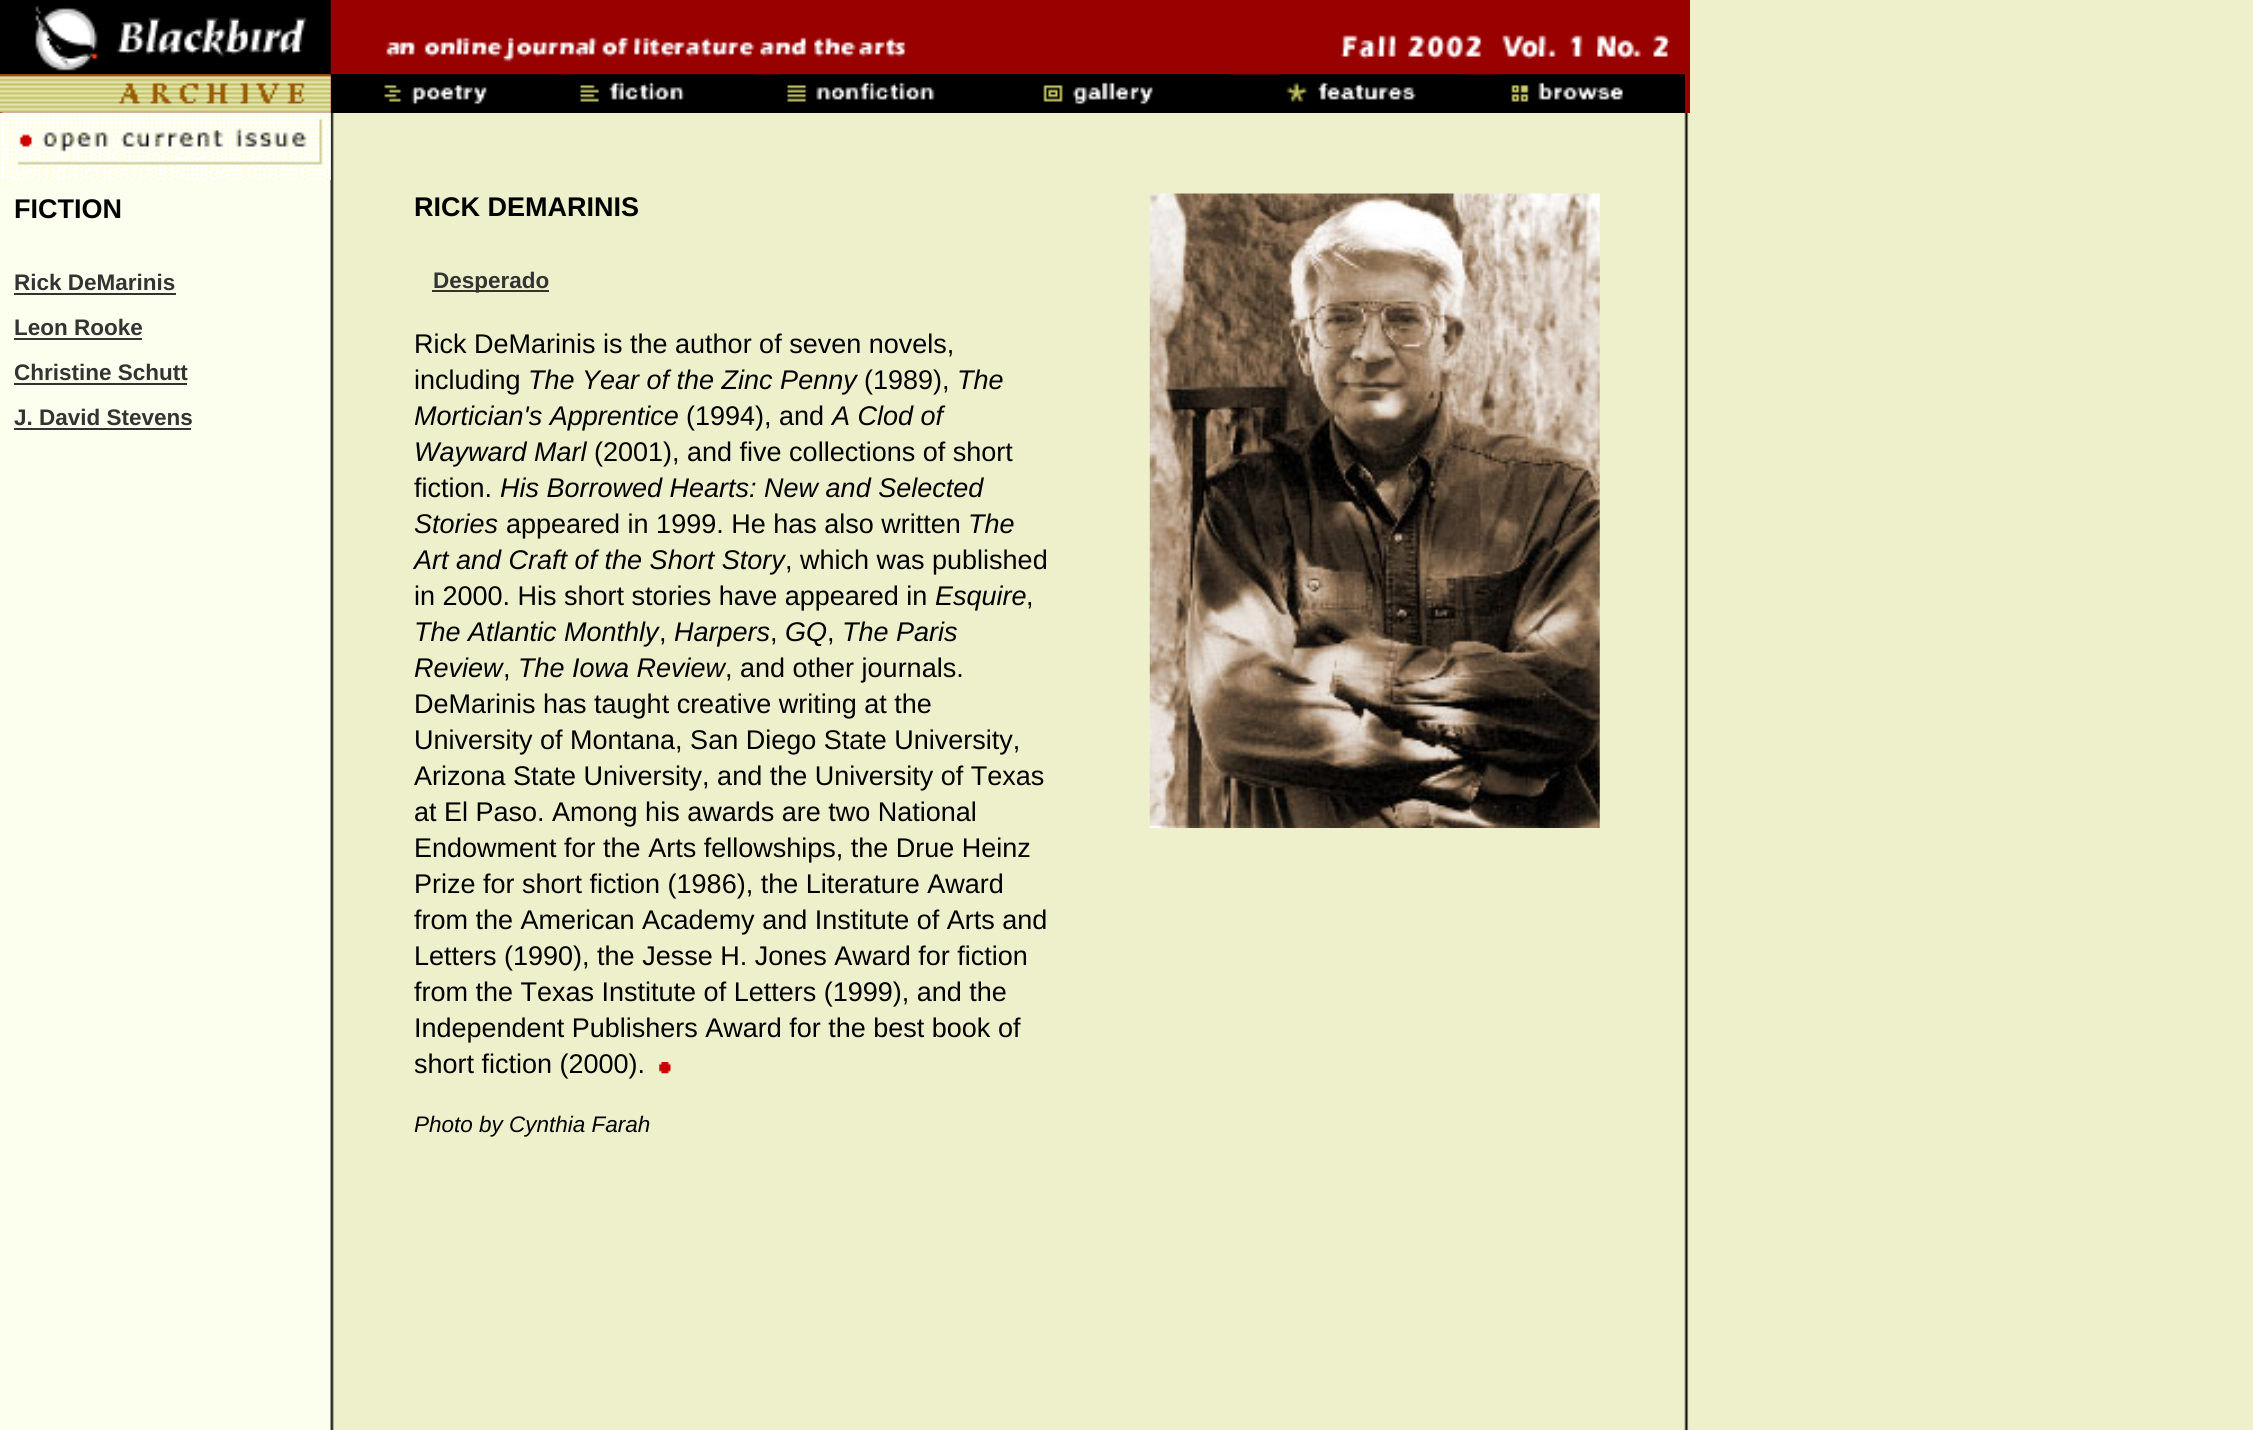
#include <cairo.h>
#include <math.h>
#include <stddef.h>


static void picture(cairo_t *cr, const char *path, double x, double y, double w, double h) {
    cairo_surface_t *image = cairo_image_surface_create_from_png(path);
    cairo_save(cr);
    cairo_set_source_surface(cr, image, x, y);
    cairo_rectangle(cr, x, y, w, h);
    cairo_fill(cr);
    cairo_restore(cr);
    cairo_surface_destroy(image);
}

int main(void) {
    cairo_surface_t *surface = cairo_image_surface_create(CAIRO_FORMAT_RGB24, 2253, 1430);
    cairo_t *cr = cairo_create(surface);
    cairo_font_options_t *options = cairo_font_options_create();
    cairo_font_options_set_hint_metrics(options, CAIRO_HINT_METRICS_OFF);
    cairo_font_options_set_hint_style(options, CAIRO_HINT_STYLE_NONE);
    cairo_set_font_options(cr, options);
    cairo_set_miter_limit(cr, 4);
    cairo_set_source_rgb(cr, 1, 1, 1);
    cairo_paint(cr);
    picture(cr, "img1.png", 0, 0, 2253, 1430);
    cairo_set_source_rgb(cr, 0.6, 0, 0);
    cairo_rectangle(cr, 0, 0, 1690, 113);
    cairo_fill(cr);
    picture(cr, "img2.png", 0, 0, 331, 75);
    cairo_set_source_rgb(cr, 0, 0, 0);
    cairo_rectangle(cr, 331, 74, 1354, 39);
    cairo_fill(cr);
    picture(cr, "img3.png", 380, 37, 534, 38);
    picture(cr, "img4.png", 1228, 35, 457, 40);
    picture(cr, "img5.png", 0, 74, 331, 39);
    picture(cr, "img6.png", 380, 74, 176, 31);
    picture(cr, "img7.png", 571, 74, 183, 28);
    picture(cr, "img8.png", 778, 74, 157, 28);
    picture(cr, "img9.png", 1043, 82, 110, 23);
    picture(cr, "img10.png", 1280, 74, 183, 28);
    picture(cr, "img11.png", 1500, 74, 183, 28);
    picture(cr, "img12.png", 2, 112, 329, 68);
    cairo_select_font_face(cr, "Liberation Sans", CAIRO_FONT_SLANT_NORMAL, CAIRO_FONT_WEIGHT_BOLD);
    cairo_set_font_size(cr, 27);
    cairo_move_to(cr, 14, 218);
    cairo_show_text(cr, "FICTION");
    cairo_set_font_size(cr, 22.5);
    cairo_set_source_rgb(cr, 0.2, 0.2, 0.2);
    cairo_move_to(cr, 14, 290);
    cairo_show_text(cr, "Rick DeMarinis");
    cairo_rectangle(cr, 14, 293, 162, 2);
    cairo_fill(cr);
    cairo_move_to(cr, 14, 335);
    cairo_show_text(cr, "Leon Rooke");
    cairo_rectangle(cr, 14, 338, 128, 2);
    cairo_fill(cr);
    cairo_move_to(cr, 14, 380);
    cairo_show_text(cr, "Christine Schutt");
    cairo_rectangle(cr, 14, 383, 173, 2);
    cairo_fill(cr);
    cairo_move_to(cr, 14, 425);
    cairo_show_text(cr, "J. David Stevens");
    cairo_rectangle(cr, 14, 428, 177, 2);
    cairo_fill(cr);
    cairo_set_font_size(cr, 27);
    cairo_set_source_rgb(cr, 0, 0, 0);
    cairo_move_to(cr, 414, 216);
    cairo_show_text(cr, "RICK DEMARINIS");
    picture(cr, "img13.png", 1149, 193, 451, 635);
    cairo_set_source_rgb(cr, 0.2, 0.2, 0.2);
    cairo_rectangle(cr, 432, 290, 117, 2);
    cairo_fill(cr);
    cairo_set_font_size(cr, 22.5);
    cairo_move_to(cr, 433, 288);
    cairo_show_text(cr, "Desperado");
    cairo_select_font_face(cr, "Liberation Sans", CAIRO_FONT_SLANT_NORMAL, CAIRO_FONT_WEIGHT_NORMAL);
    cairo_set_font_size(cr, 27);
    cairo_set_source_rgb(cr, 0, 0, 0);
    cairo_move_to(cr, 414, 353);
    cairo_show_text(cr, "Rick DeMarinis is the author of seven novels,");
    cairo_move_to(cr, 414, 389);
    cairo_show_text(cr, "including");
    cairo_select_font_face(cr, "Liberation Sans", CAIRO_FONT_SLANT_ITALIC, CAIRO_FONT_WEIGHT_NORMAL);
    cairo_move_to(cr, 528, 389);
    cairo_show_text(cr, "The Year of the Zinc Penny");
    cairo_select_font_face(cr, "Liberation Sans", CAIRO_FONT_SLANT_NORMAL, CAIRO_FONT_WEIGHT_NORMAL);
    cairo_move_to(cr, 864, 389);
    cairo_show_text(cr, "(1989),");
    cairo_select_font_face(cr, "Liberation Sans", CAIRO_FONT_SLANT_ITALIC, CAIRO_FONT_WEIGHT_NORMAL);
    cairo_move_to(cr, 957, 389);
    cairo_show_text(cr, "The");
    cairo_move_to(cr, 414, 425);
    cairo_show_text(cr, "Mortician's Apprentice");
    cairo_select_font_face(cr, "Liberation Sans", CAIRO_FONT_SLANT_NORMAL, CAIRO_FONT_WEIGHT_NORMAL);
    cairo_move_to(cr, 686, 425);
    cairo_show_text(cr, "(1994), and");
    cairo_select_font_face(cr, "Liberation Sans", CAIRO_FONT_SLANT_ITALIC, CAIRO_FONT_WEIGHT_NORMAL);
    cairo_move_to(cr, 832, 425);
    cairo_show_text(cr, "A Clod of");
    cairo_move_to(cr, 414, 461);
    cairo_show_text(cr, "Wayward Marl");
    cairo_select_font_face(cr, "Liberation Sans", CAIRO_FONT_SLANT_NORMAL, CAIRO_FONT_WEIGHT_NORMAL);
    cairo_move_to(cr, 594, 461);
    cairo_show_text(cr, "(2001), and five collections of short");
    cairo_move_to(cr, 414, 497);
    cairo_show_text(cr, "fiction.");
    cairo_select_font_face(cr, "Liberation Sans", CAIRO_FONT_SLANT_ITALIC, CAIRO_FONT_WEIGHT_NORMAL);
    cairo_move_to(cr, 500, 497);
    cairo_show_text(cr, "His Borrowed Hearts: New and Selected");
    cairo_move_to(cr, 414, 533);
    cairo_show_text(cr, "Stories");
    cairo_select_font_face(cr, "Liberation Sans", CAIRO_FONT_SLANT_NORMAL, CAIRO_FONT_WEIGHT_NORMAL);
    cairo_move_to(cr, 506, 533);
    cairo_show_text(cr, "appeared in 1999. He has also written");
    cairo_select_font_face(cr, "Liberation Sans", CAIRO_FONT_SLANT_ITALIC, CAIRO_FONT_WEIGHT_NORMAL);
    cairo_move_to(cr, 968, 533);
    cairo_show_text(cr, "The");
    cairo_move_to(cr, 414, 569);
    cairo_show_text(cr, "Art and Craft of the Short Story");
    cairo_select_font_face(cr, "Liberation Sans", CAIRO_FONT_SLANT_NORMAL, CAIRO_FONT_WEIGHT_NORMAL);
    cairo_move_to(cr, 785, 569);
    cairo_show_text(cr, ", which was published");
    cairo_move_to(cr, 414, 605);
    cairo_show_text(cr, "in 2000. His short stories have appeared in");
    cairo_select_font_face(cr, "Liberation Sans", CAIRO_FONT_SLANT_ITALIC, CAIRO_FONT_WEIGHT_NORMAL);
    cairo_move_to(cr, 935, 605);
    cairo_show_text(cr, "Esquire");
    cairo_select_font_face(cr, "Liberation Sans", CAIRO_FONT_SLANT_NORMAL, CAIRO_FONT_WEIGHT_NORMAL);
    cairo_move_to(cr, 1026, 605);
    cairo_show_text(cr, ",");
    cairo_select_font_face(cr, "Liberation Sans", CAIRO_FONT_SLANT_ITALIC, CAIRO_FONT_WEIGHT_NORMAL);
    cairo_move_to(cr, 414, 641);
    cairo_show_text(cr, "The Atlantic Monthly");
    cairo_select_font_face(cr, "Liberation Sans", CAIRO_FONT_SLANT_NORMAL, CAIRO_FONT_WEIGHT_NORMAL);
    cairo_move_to(cr, 659, 641);
    cairo_show_text(cr, ",");
    cairo_select_font_face(cr, "Liberation Sans", CAIRO_FONT_SLANT_ITALIC, CAIRO_FONT_WEIGHT_NORMAL);
    cairo_move_to(cr, 674, 641);
    cairo_show_text(cr, "Harpers");
    cairo_select_font_face(cr, "Liberation Sans", CAIRO_FONT_SLANT_NORMAL, CAIRO_FONT_WEIGHT_NORMAL);
    cairo_move_to(cr, 770, 641);
    cairo_show_text(cr, ",");
    cairo_select_font_face(cr, "Liberation Sans", CAIRO_FONT_SLANT_ITALIC, CAIRO_FONT_WEIGHT_NORMAL);
    cairo_move_to(cr, 785, 641);
    cairo_show_text(cr, "GQ");
    cairo_select_font_face(cr, "Liberation Sans", CAIRO_FONT_SLANT_NORMAL, CAIRO_FONT_WEIGHT_NORMAL);
    cairo_move_to(cr, 827, 641);
    cairo_show_text(cr, ",");
    cairo_select_font_face(cr, "Liberation Sans", CAIRO_FONT_SLANT_ITALIC, CAIRO_FONT_WEIGHT_NORMAL);
    cairo_move_to(cr, 842, 641);
    cairo_show_text(cr, "The Paris");
    cairo_move_to(cr, 414, 677);
    cairo_show_text(cr, "Review");
    cairo_select_font_face(cr, "Liberation Sans", CAIRO_FONT_SLANT_NORMAL, CAIRO_FONT_WEIGHT_NORMAL);
    cairo_move_to(cr, 503, 677);
    cairo_show_text(cr, ",");
    cairo_select_font_face(cr, "Liberation Sans", CAIRO_FONT_SLANT_ITALIC, CAIRO_FONT_WEIGHT_NORMAL);
    cairo_move_to(cr, 518, 677);
    cairo_show_text(cr, "The Iowa Review");
    cairo_select_font_face(cr, "Liberation Sans", CAIRO_FONT_SLANT_NORMAL, CAIRO_FONT_WEIGHT_NORMAL);
    cairo_move_to(cr, 725, 677);
    cairo_show_text(cr, ", and other journals.");
    cairo_move_to(cr, 414, 713);
    cairo_show_text(cr, "DeMarinis has taught creative writing at the");
    cairo_move_to(cr, 414, 749);
    cairo_show_text(cr, "University of Montana, San Diego State University,");
    cairo_move_to(cr, 414, 785);
    cairo_show_text(cr, "Arizona State University, and the University of Texas");
    cairo_move_to(cr, 414, 821);
    cairo_show_text(cr, "at El Paso. Among his awards are two National");
    cairo_move_to(cr, 414, 857);
    cairo_show_text(cr, "Endowment for the Arts fellowships, the Drue Heinz");
    cairo_move_to(cr, 414, 893);
    cairo_show_text(cr, "Prize for short fiction (1986), the Literature Award");
    cairo_move_to(cr, 414, 929);
    cairo_show_text(cr, "from the American Academy and Institute of Arts and");
    cairo_move_to(cr, 414, 965);
    cairo_show_text(cr, "Letters (1990), the Jesse H. Jones Award for fiction");
    cairo_move_to(cr, 414, 1001);
    cairo_show_text(cr, "from the Texas Institute of Letters (1999), and the");
    cairo_move_to(cr, 414, 1037);
    cairo_show_text(cr, "Independent Publishers Award for the best book of");
    cairo_move_to(cr, 414, 1073);
    cairo_show_text(cr, "short fiction (2000).");
    picture(cr, "img14.png", 659, 1062, 12, 12);
    cairo_select_font_face(cr, "Liberation Sans", CAIRO_FONT_SLANT_ITALIC, CAIRO_FONT_WEIGHT_NORMAL);
    cairo_set_font_size(cr, 22.5);
    cairo_move_to(cr, 414, 1132);
    cairo_show_text(cr, "Photo by Cynthia Farah");
    cairo_surface_write_to_png(surface, "page.png");
    cairo_font_options_destroy(options);
    cairo_destroy(cr);
    cairo_surface_destroy(surface);
    return 0;
}
